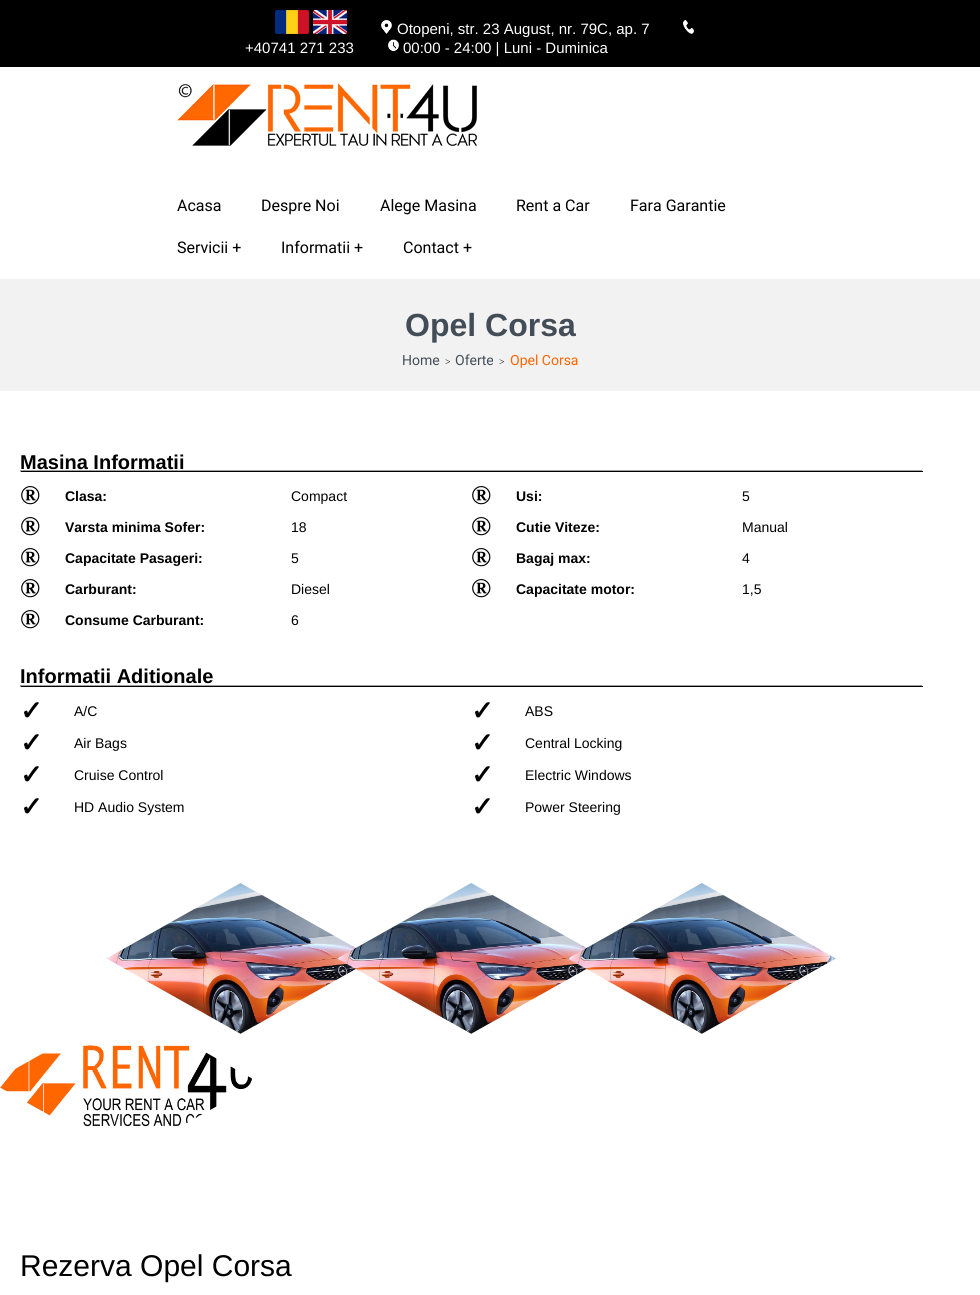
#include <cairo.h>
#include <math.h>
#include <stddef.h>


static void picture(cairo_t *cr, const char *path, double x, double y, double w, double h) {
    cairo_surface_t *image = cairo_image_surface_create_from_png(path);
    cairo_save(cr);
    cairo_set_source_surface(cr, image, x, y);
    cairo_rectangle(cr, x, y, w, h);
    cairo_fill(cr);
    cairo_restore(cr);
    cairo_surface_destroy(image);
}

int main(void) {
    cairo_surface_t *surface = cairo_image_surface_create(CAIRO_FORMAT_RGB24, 980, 1295);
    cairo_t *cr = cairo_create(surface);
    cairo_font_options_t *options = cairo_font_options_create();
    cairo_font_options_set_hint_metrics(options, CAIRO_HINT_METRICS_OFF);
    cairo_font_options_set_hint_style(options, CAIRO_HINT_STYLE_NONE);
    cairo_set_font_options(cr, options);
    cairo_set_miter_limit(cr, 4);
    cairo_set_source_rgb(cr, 1, 1, 1);
    cairo_paint(cr);
    cairo_set_source_rgb(cr, 0, 0, 0);
    cairo_rectangle(cr, 0, 0, 980, 67);
    cairo_fill(cr);
    picture(cr, "img1.png", 275, 10, 34, 24);
    picture(cr, "img2.png", 313, 10, 34, 24);
    picture(cr, "img3.png", 381, 20, 11, 14);
    cairo_select_font_face(cr, "Liberation Sans", CAIRO_FONT_SLANT_NORMAL, CAIRO_FONT_WEIGHT_NORMAL);
    cairo_set_font_size(cr, 15);
    cairo_set_source_rgb(cr, 1, 1, 1);
    cairo_move_to(cr, 397, 34);
    cairo_show_text(cr, "Otopeni, str. 23 August, nr. 79C, ap. 7");
    picture(cr, "img4.png", 683, 20, 11, 14);
    cairo_move_to(cr, 245, 53);
    cairo_show_text(cr, "+40741 271 233");
    picture(cr, "img5.png", 388, 39, 11, 13);
    cairo_move_to(cr, 403, 53);
    cairo_show_text(cr, "00:00 - 24:00 | Luni - Duminica");
    picture(cr, "img6.png", 177, 83, 300, 63);
    cairo_select_font_face(cr, "Roboto", CAIRO_FONT_SLANT_NORMAL, CAIRO_FONT_WEIGHT_NORMAL);
    cairo_set_font_size(cr, 16);
    cairo_set_source_rgb(cr, 0, 0, 0);
    cairo_move_to(cr, 177, 211);
    cairo_show_text(cr, "Acasa");
    cairo_move_to(cr, 261, 211);
    cairo_show_text(cr, "Despre Noi");
    cairo_move_to(cr, 380, 211);
    cairo_show_text(cr, "Alege Masina");
    cairo_move_to(cr, 516, 211);
    cairo_show_text(cr, "Rent a Car");
    cairo_move_to(cr, 630, 211);
    cairo_show_text(cr, "Fara Garantie");
    cairo_move_to(cr, 177, 253);
    cairo_show_text(cr, "Servicii +");
    cairo_move_to(cr, 281, 253);
    cairo_show_text(cr, "Informatii +");
    cairo_move_to(cr, 403, 253);
    cairo_show_text(cr, "Contact +");
    cairo_set_source_rgb(cr, 0.949, 0.949, 0.949);
    cairo_rectangle(cr, 0, 279, 980, 112);
    cairo_fill(cr);
    cairo_select_font_face(cr, "Liberation Sans", CAIRO_FONT_SLANT_NORMAL, CAIRO_FONT_WEIGHT_BOLD);
    cairo_set_font_size(cr, 32);
    cairo_set_source_rgb(cr, 0.263, 0.302, 0.341);
    cairo_move_to(cr, 405, 336);
    cairo_show_text(cr, "Opel Corsa");
    cairo_select_font_face(cr, "Roboto", CAIRO_FONT_SLANT_NORMAL, CAIRO_FONT_WEIGHT_NORMAL);
    cairo_set_font_size(cr, 14);
    cairo_move_to(cr, 402, 365);
    cairo_show_text(cr, "Home");
    cairo_select_font_face(cr, "Liberation Serif", CAIRO_FONT_SLANT_NORMAL, CAIRO_FONT_WEIGHT_NORMAL);
    cairo_set_font_size(cr, 10);
    cairo_set_source_rgb(cr, 0, 0, 0);
    cairo_move_to(cr, 445, 365);
    cairo_show_text(cr, ">");
    cairo_select_font_face(cr, "Roboto", CAIRO_FONT_SLANT_NORMAL, CAIRO_FONT_WEIGHT_NORMAL);
    cairo_set_font_size(cr, 14);
    cairo_set_source_rgb(cr, 0.263, 0.302, 0.341);
    cairo_move_to(cr, 455, 365);
    cairo_show_text(cr, "Oferte");
    cairo_select_font_face(cr, "Liberation Serif", CAIRO_FONT_SLANT_NORMAL, CAIRO_FONT_WEIGHT_NORMAL);
    cairo_set_font_size(cr, 10);
    cairo_set_source_rgb(cr, 0, 0, 0);
    cairo_move_to(cr, 499, 365);
    cairo_show_text(cr, ">");
    cairo_select_font_face(cr, "Roboto", CAIRO_FONT_SLANT_NORMAL, CAIRO_FONT_WEIGHT_NORMAL);
    cairo_set_font_size(cr, 14);
    cairo_set_source_rgb(cr, 1, 0.4, 0);
    cairo_move_to(cr, 510, 365);
    cairo_show_text(cr, "Opel Corsa");
    cairo_select_font_face(cr, "Liberation Sans", CAIRO_FONT_SLANT_NORMAL, CAIRO_FONT_WEIGHT_BOLD);
    cairo_set_font_size(cr, 20);
    cairo_set_source_rgb(cr, 0, 0, 0);
    cairo_move_to(cr, 20, 469);
    cairo_show_text(cr, "Masina Informatii");
    cairo_set_source_rgb(cr, 0.624, 0.624, 0.624);
    cairo_rectangle(cr, 20, 470, 903, 1);
    cairo_fill(cr);
    cairo_set_source_rgb(cr, 0.933, 0.933, 0.933);
    cairo_rectangle(cr, 922, 470, 1, 2);
    cairo_fill(cr);
    cairo_set_source_rgb(cr, 0, 0, 0);
    cairo_rectangle(cr, 20, 471, 903, 1);
    cairo_fill(cr);
    cairo_set_source_rgb(cr, 0.624, 0.624, 0.624);
    cairo_rectangle(cr, 20, 470, 1, 2);
    cairo_fill(cr);
    cairo_select_font_face(cr, "Liberation Serif", CAIRO_FONT_SLANT_NORMAL, CAIRO_FONT_WEIGHT_BOLD);
    cairo_set_font_size(cr, 27);
    cairo_set_source_rgb(cr, 0, 0, 0);
    cairo_move_to(cr, 20, 504);
    cairo_show_text(cr, "®");
    cairo_select_font_face(cr, "Liberation Sans", CAIRO_FONT_SLANT_NORMAL, CAIRO_FONT_WEIGHT_BOLD);
    cairo_set_font_size(cr, 14);
    cairo_move_to(cr, 65, 501);
    cairo_show_text(cr, "Clasa:");
    cairo_select_font_face(cr, "Liberation Sans", CAIRO_FONT_SLANT_NORMAL, CAIRO_FONT_WEIGHT_NORMAL);
    cairo_move_to(cr, 291, 501);
    cairo_show_text(cr, "Compact");
    cairo_select_font_face(cr, "Liberation Serif", CAIRO_FONT_SLANT_NORMAL, CAIRO_FONT_WEIGHT_BOLD);
    cairo_set_font_size(cr, 27);
    cairo_move_to(cr, 471, 504);
    cairo_show_text(cr, "®");
    cairo_select_font_face(cr, "Liberation Sans", CAIRO_FONT_SLANT_NORMAL, CAIRO_FONT_WEIGHT_BOLD);
    cairo_set_font_size(cr, 14);
    cairo_move_to(cr, 516, 501);
    cairo_show_text(cr, "Usi:");
    cairo_select_font_face(cr, "Liberation Sans", CAIRO_FONT_SLANT_NORMAL, CAIRO_FONT_WEIGHT_NORMAL);
    cairo_move_to(cr, 742, 501);
    cairo_show_text(cr, "5");
    cairo_select_font_face(cr, "Liberation Serif", CAIRO_FONT_SLANT_NORMAL, CAIRO_FONT_WEIGHT_BOLD);
    cairo_set_font_size(cr, 27);
    cairo_move_to(cr, 20, 535);
    cairo_show_text(cr, "®");
    cairo_select_font_face(cr, "Liberation Sans", CAIRO_FONT_SLANT_NORMAL, CAIRO_FONT_WEIGHT_BOLD);
    cairo_set_font_size(cr, 14);
    cairo_move_to(cr, 65, 532);
    cairo_show_text(cr, "Varsta minima Sofer:");
    cairo_select_font_face(cr, "Liberation Sans", CAIRO_FONT_SLANT_NORMAL, CAIRO_FONT_WEIGHT_NORMAL);
    cairo_move_to(cr, 291, 532);
    cairo_show_text(cr, "18");
    cairo_select_font_face(cr, "Liberation Serif", CAIRO_FONT_SLANT_NORMAL, CAIRO_FONT_WEIGHT_BOLD);
    cairo_set_font_size(cr, 27);
    cairo_move_to(cr, 471, 535);
    cairo_show_text(cr, "®");
    cairo_select_font_face(cr, "Liberation Sans", CAIRO_FONT_SLANT_NORMAL, CAIRO_FONT_WEIGHT_BOLD);
    cairo_set_font_size(cr, 14);
    cairo_move_to(cr, 516, 532);
    cairo_show_text(cr, "Cutie Viteze:");
    cairo_select_font_face(cr, "Liberation Sans", CAIRO_FONT_SLANT_NORMAL, CAIRO_FONT_WEIGHT_NORMAL);
    cairo_move_to(cr, 742, 532);
    cairo_show_text(cr, "Manual");
    cairo_select_font_face(cr, "Liberation Serif", CAIRO_FONT_SLANT_NORMAL, CAIRO_FONT_WEIGHT_BOLD);
    cairo_set_font_size(cr, 27);
    cairo_move_to(cr, 20, 566);
    cairo_show_text(cr, "®");
    cairo_select_font_face(cr, "Liberation Sans", CAIRO_FONT_SLANT_NORMAL, CAIRO_FONT_WEIGHT_BOLD);
    cairo_set_font_size(cr, 14);
    cairo_move_to(cr, 65, 563);
    cairo_show_text(cr, "Capacitate Pasageri:");
    cairo_select_font_face(cr, "Liberation Sans", CAIRO_FONT_SLANT_NORMAL, CAIRO_FONT_WEIGHT_NORMAL);
    cairo_move_to(cr, 291, 563);
    cairo_show_text(cr, "5");
    cairo_select_font_face(cr, "Liberation Serif", CAIRO_FONT_SLANT_NORMAL, CAIRO_FONT_WEIGHT_BOLD);
    cairo_set_font_size(cr, 27);
    cairo_move_to(cr, 471, 566);
    cairo_show_text(cr, "®");
    cairo_select_font_face(cr, "Liberation Sans", CAIRO_FONT_SLANT_NORMAL, CAIRO_FONT_WEIGHT_BOLD);
    cairo_set_font_size(cr, 14);
    cairo_move_to(cr, 516, 563);
    cairo_show_text(cr, "Bagaj max:");
    cairo_select_font_face(cr, "Liberation Sans", CAIRO_FONT_SLANT_NORMAL, CAIRO_FONT_WEIGHT_NORMAL);
    cairo_move_to(cr, 742, 563);
    cairo_show_text(cr, "4");
    cairo_select_font_face(cr, "Liberation Serif", CAIRO_FONT_SLANT_NORMAL, CAIRO_FONT_WEIGHT_BOLD);
    cairo_set_font_size(cr, 27);
    cairo_move_to(cr, 20, 597);
    cairo_show_text(cr, "®");
    cairo_select_font_face(cr, "Liberation Sans", CAIRO_FONT_SLANT_NORMAL, CAIRO_FONT_WEIGHT_BOLD);
    cairo_set_font_size(cr, 14);
    cairo_move_to(cr, 65, 594);
    cairo_show_text(cr, "Carburant:");
    cairo_select_font_face(cr, "Liberation Sans", CAIRO_FONT_SLANT_NORMAL, CAIRO_FONT_WEIGHT_NORMAL);
    cairo_move_to(cr, 291, 594);
    cairo_show_text(cr, "Diesel");
    cairo_select_font_face(cr, "Liberation Serif", CAIRO_FONT_SLANT_NORMAL, CAIRO_FONT_WEIGHT_BOLD);
    cairo_set_font_size(cr, 27);
    cairo_move_to(cr, 471, 597);
    cairo_show_text(cr, "®");
    cairo_select_font_face(cr, "Liberation Sans", CAIRO_FONT_SLANT_NORMAL, CAIRO_FONT_WEIGHT_BOLD);
    cairo_set_font_size(cr, 14);
    cairo_move_to(cr, 516, 594);
    cairo_show_text(cr, "Capacitate motor:");
    cairo_select_font_face(cr, "Liberation Sans", CAIRO_FONT_SLANT_NORMAL, CAIRO_FONT_WEIGHT_NORMAL);
    cairo_move_to(cr, 742, 594);
    cairo_show_text(cr, "1,5");
    cairo_select_font_face(cr, "Liberation Serif", CAIRO_FONT_SLANT_NORMAL, CAIRO_FONT_WEIGHT_BOLD);
    cairo_set_font_size(cr, 27);
    cairo_move_to(cr, 20, 628);
    cairo_show_text(cr, "®");
    cairo_select_font_face(cr, "Liberation Sans", CAIRO_FONT_SLANT_NORMAL, CAIRO_FONT_WEIGHT_BOLD);
    cairo_set_font_size(cr, 14);
    cairo_move_to(cr, 65, 625);
    cairo_show_text(cr, "Consume Carburant:");
    cairo_select_font_face(cr, "Liberation Sans", CAIRO_FONT_SLANT_NORMAL, CAIRO_FONT_WEIGHT_NORMAL);
    cairo_move_to(cr, 291, 625);
    cairo_show_text(cr, "6");
    cairo_select_font_face(cr, "Liberation Sans", CAIRO_FONT_SLANT_NORMAL, CAIRO_FONT_WEIGHT_BOLD);
    cairo_set_font_size(cr, 20);
    cairo_move_to(cr, 20, 683);
    cairo_show_text(cr, "Informatii Aditionale");
    cairo_set_source_rgb(cr, 0.624, 0.624, 0.624);
    cairo_rectangle(cr, 20, 685, 903, 1);
    cairo_fill(cr);
    cairo_set_source_rgb(cr, 0.933, 0.933, 0.933);
    cairo_rectangle(cr, 922, 685, 1, 2);
    cairo_fill(cr);
    cairo_set_source_rgb(cr, 0, 0, 0);
    cairo_rectangle(cr, 20, 686, 903, 1);
    cairo_fill(cr);
    cairo_set_source_rgb(cr, 0.624, 0.624, 0.624);
    cairo_rectangle(cr, 20, 685, 1, 2);
    cairo_fill(cr);
    cairo_select_font_face(cr, "DejaVu Sans", CAIRO_FONT_SLANT_NORMAL, CAIRO_FONT_WEIGHT_BOLD);
    cairo_set_font_size(cr, 27);
    cairo_set_source_rgb(cr, 0, 0, 0);
    cairo_move_to(cr, 20, 720);
    cairo_show_text(cr, "✓");
    cairo_select_font_face(cr, "Liberation Sans", CAIRO_FONT_SLANT_NORMAL, CAIRO_FONT_WEIGHT_NORMAL);
    cairo_set_font_size(cr, 14);
    cairo_move_to(cr, 74, 716);
    cairo_show_text(cr, "A/C");
    cairo_select_font_face(cr, "DejaVu Sans", CAIRO_FONT_SLANT_NORMAL, CAIRO_FONT_WEIGHT_BOLD);
    cairo_set_font_size(cr, 27);
    cairo_move_to(cr, 471, 720);
    cairo_show_text(cr, "✓");
    cairo_select_font_face(cr, "Liberation Sans", CAIRO_FONT_SLANT_NORMAL, CAIRO_FONT_WEIGHT_NORMAL);
    cairo_set_font_size(cr, 14);
    cairo_move_to(cr, 525, 716);
    cairo_show_text(cr, "ABS");
    cairo_select_font_face(cr, "DejaVu Sans", CAIRO_FONT_SLANT_NORMAL, CAIRO_FONT_WEIGHT_BOLD);
    cairo_set_font_size(cr, 27);
    cairo_move_to(cr, 20, 752);
    cairo_show_text(cr, "✓");
    cairo_select_font_face(cr, "Liberation Sans", CAIRO_FONT_SLANT_NORMAL, CAIRO_FONT_WEIGHT_NORMAL);
    cairo_set_font_size(cr, 14);
    cairo_move_to(cr, 74, 748);
    cairo_show_text(cr, "Air Bags");
    cairo_select_font_face(cr, "DejaVu Sans", CAIRO_FONT_SLANT_NORMAL, CAIRO_FONT_WEIGHT_BOLD);
    cairo_set_font_size(cr, 27);
    cairo_move_to(cr, 471, 752);
    cairo_show_text(cr, "✓");
    cairo_select_font_face(cr, "Liberation Sans", CAIRO_FONT_SLANT_NORMAL, CAIRO_FONT_WEIGHT_NORMAL);
    cairo_set_font_size(cr, 14);
    cairo_move_to(cr, 525, 748);
    cairo_show_text(cr, "Central Locking");
    cairo_select_font_face(cr, "DejaVu Sans", CAIRO_FONT_SLANT_NORMAL, CAIRO_FONT_WEIGHT_BOLD);
    cairo_set_font_size(cr, 27);
    cairo_move_to(cr, 20, 784);
    cairo_show_text(cr, "✓");
    cairo_select_font_face(cr, "Liberation Sans", CAIRO_FONT_SLANT_NORMAL, CAIRO_FONT_WEIGHT_NORMAL);
    cairo_set_font_size(cr, 14);
    cairo_move_to(cr, 74, 780);
    cairo_show_text(cr, "Cruise Control");
    cairo_select_font_face(cr, "DejaVu Sans", CAIRO_FONT_SLANT_NORMAL, CAIRO_FONT_WEIGHT_BOLD);
    cairo_set_font_size(cr, 27);
    cairo_move_to(cr, 471, 784);
    cairo_show_text(cr, "✓");
    cairo_select_font_face(cr, "Liberation Sans", CAIRO_FONT_SLANT_NORMAL, CAIRO_FONT_WEIGHT_NORMAL);
    cairo_set_font_size(cr, 14);
    cairo_move_to(cr, 525, 780);
    cairo_show_text(cr, "Electric Windows");
    cairo_select_font_face(cr, "DejaVu Sans", CAIRO_FONT_SLANT_NORMAL, CAIRO_FONT_WEIGHT_BOLD);
    cairo_set_font_size(cr, 27);
    cairo_move_to(cr, 20, 816);
    cairo_show_text(cr, "✓");
    cairo_select_font_face(cr, "Liberation Sans", CAIRO_FONT_SLANT_NORMAL, CAIRO_FONT_WEIGHT_NORMAL);
    cairo_set_font_size(cr, 14);
    cairo_move_to(cr, 74, 812);
    cairo_show_text(cr, "HD Audio System");
    cairo_select_font_face(cr, "DejaVu Sans", CAIRO_FONT_SLANT_NORMAL, CAIRO_FONT_WEIGHT_BOLD);
    cairo_set_font_size(cr, 27);
    cairo_move_to(cr, 471, 816);
    cairo_show_text(cr, "✓");
    cairo_select_font_face(cr, "Liberation Sans", CAIRO_FONT_SLANT_NORMAL, CAIRO_FONT_WEIGHT_NORMAL);
    cairo_set_font_size(cr, 14);
    cairo_move_to(cr, 525, 812);
    cairo_show_text(cr, "Power Steering");
    picture(cr, "img7.png", 106, 883, 250, 151);
    picture(cr, "img8.png", 337, 883, 250, 151);
    picture(cr, "img9.png", 568, 883, 268, 151);
    picture(cr, "img10.png", 0, 1045, 252, 82);
    cairo_set_font_size(cr, 30);
    cairo_move_to(cr, 20, 1276);
    cairo_show_text(cr, "Rezerva Opel Corsa");
    cairo_surface_write_to_png(surface, "page.png");
    cairo_font_options_destroy(options);
    cairo_destroy(cr);
    cairo_surface_destroy(surface);
    return 0;
}
